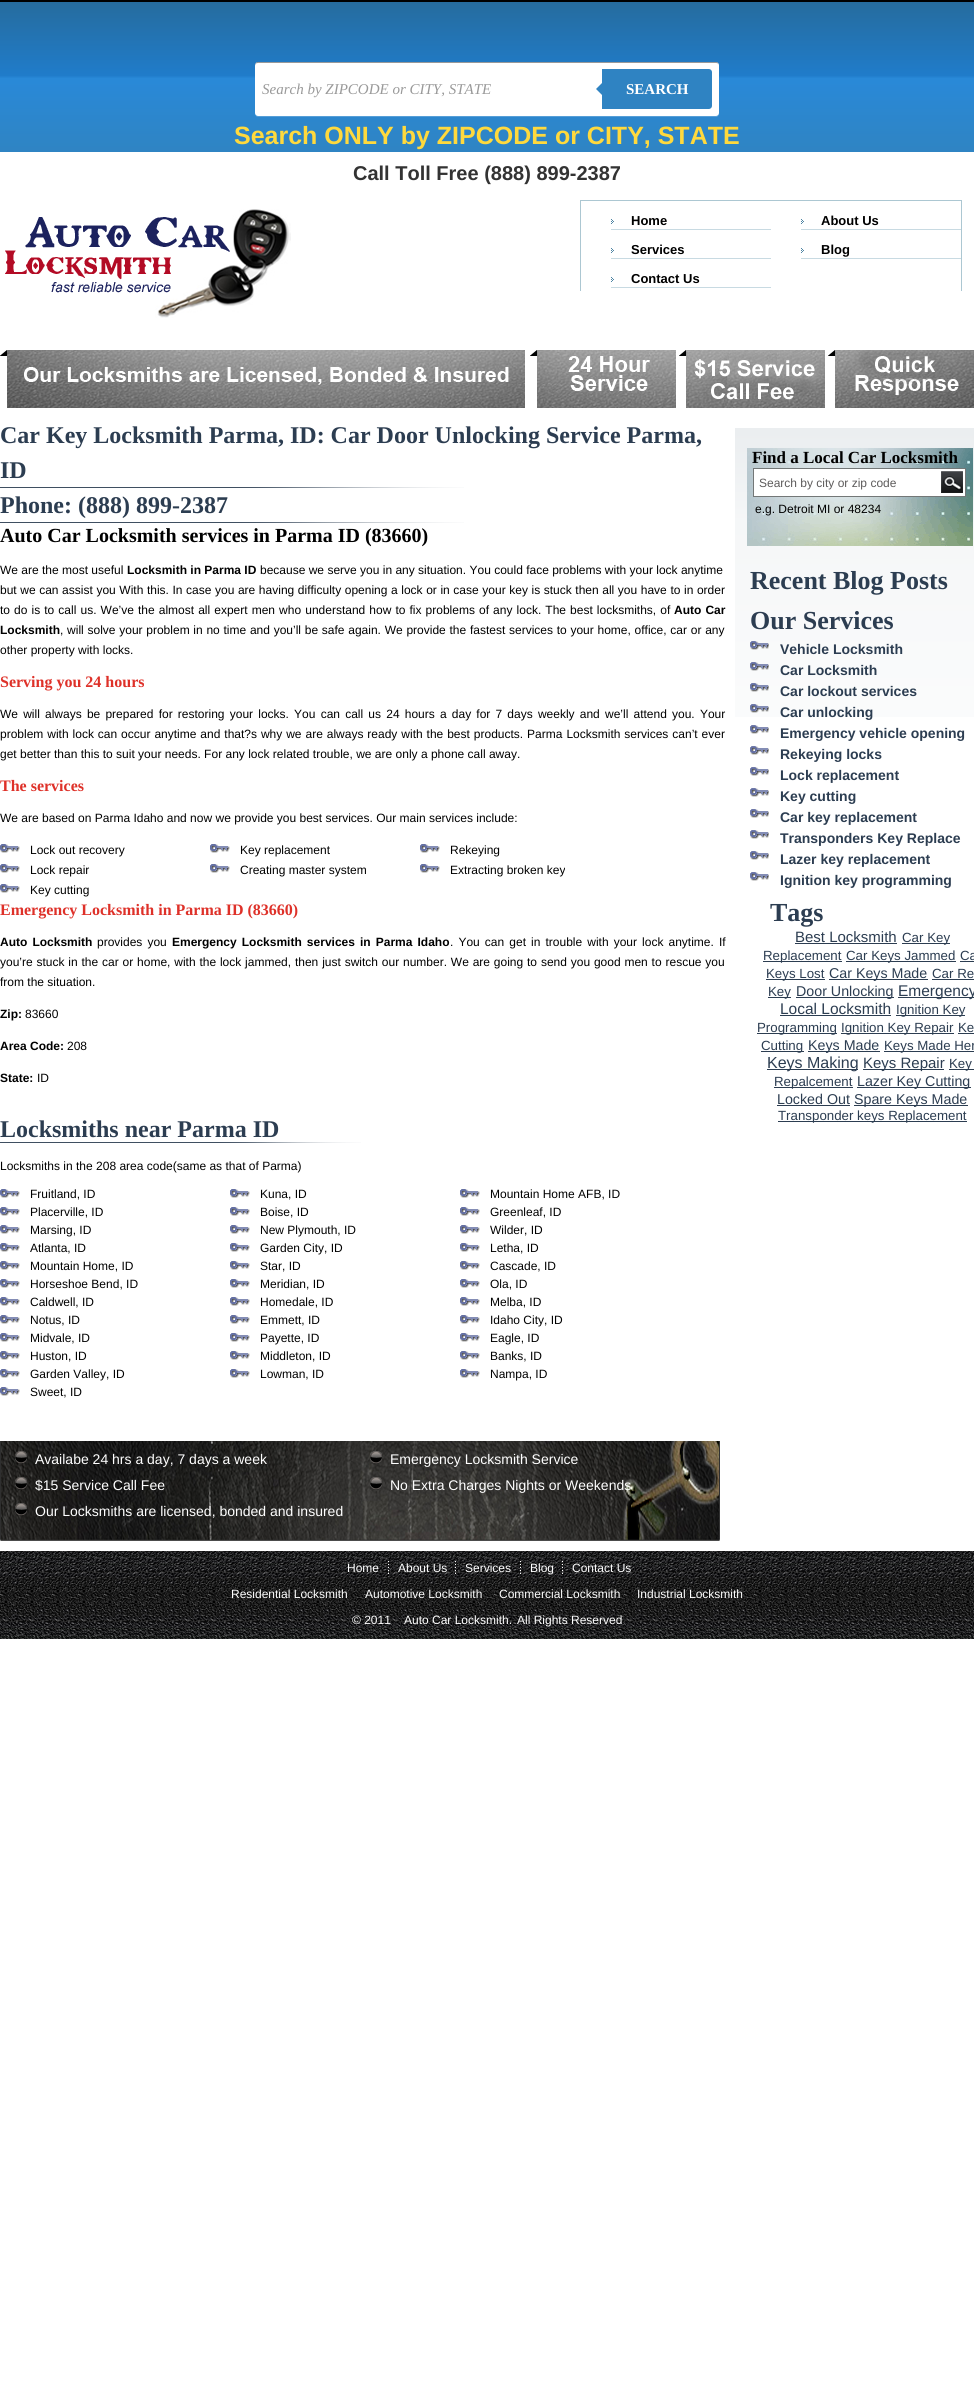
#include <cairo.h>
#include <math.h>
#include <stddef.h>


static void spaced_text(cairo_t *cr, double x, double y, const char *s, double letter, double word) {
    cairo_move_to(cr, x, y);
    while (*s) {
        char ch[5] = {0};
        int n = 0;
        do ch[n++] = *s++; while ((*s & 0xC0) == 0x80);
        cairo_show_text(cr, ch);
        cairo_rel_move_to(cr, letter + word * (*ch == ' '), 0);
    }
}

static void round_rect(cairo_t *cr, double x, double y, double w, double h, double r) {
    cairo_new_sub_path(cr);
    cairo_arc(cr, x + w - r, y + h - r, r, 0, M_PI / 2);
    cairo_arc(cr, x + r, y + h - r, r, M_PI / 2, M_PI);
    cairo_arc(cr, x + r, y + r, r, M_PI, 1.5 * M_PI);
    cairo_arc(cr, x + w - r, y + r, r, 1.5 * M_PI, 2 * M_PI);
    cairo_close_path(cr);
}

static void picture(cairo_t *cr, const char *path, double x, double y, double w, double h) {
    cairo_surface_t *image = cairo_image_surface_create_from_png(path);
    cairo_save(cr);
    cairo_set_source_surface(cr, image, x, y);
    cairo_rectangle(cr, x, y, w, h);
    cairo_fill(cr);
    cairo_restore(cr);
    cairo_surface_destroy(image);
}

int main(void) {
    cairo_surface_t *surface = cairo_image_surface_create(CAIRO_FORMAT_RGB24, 974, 2388);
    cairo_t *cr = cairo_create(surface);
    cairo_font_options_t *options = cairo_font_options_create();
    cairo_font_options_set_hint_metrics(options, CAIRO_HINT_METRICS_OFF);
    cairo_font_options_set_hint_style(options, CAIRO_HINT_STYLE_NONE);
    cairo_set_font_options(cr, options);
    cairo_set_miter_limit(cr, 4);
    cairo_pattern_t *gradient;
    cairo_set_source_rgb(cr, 1, 1, 1);
    cairo_paint(cr);
    cairo_set_source_rgb(cr, 0, 0, 0);
    cairo_rectangle(cr, 0, 0, 974, 2);
    cairo_fill(cr);
    gradient = cairo_pattern_create_linear(487, 2, 487, 152);
    cairo_pattern_add_color_stop_rgba(gradient, 0, 0.149, 0.424, 0.62, 1);
    cairo_pattern_add_color_stop_rgba(gradient, 0.49, 0.125, 0.486, 0.792, 1);
    cairo_pattern_add_color_stop_rgba(gradient, 0.51, 0.161, 0.537, 0.847, 1);
    cairo_pattern_add_color_stop_rgba(gradient, 1, 0.184, 0.518, 0.765, 1);
    cairo_set_source(cr, gradient);
    cairo_pattern_destroy(gradient);
    cairo_rectangle(cr, 0, 2, 974, 150);
    cairo_fill(cr);
    cairo_set_source_rgb(cr, 0.337, 0.62, 0.843);
    cairo_new_path(cr);
    cairo_move_to(cr, 255, 113);
    cairo_curve_to(cr, 255, 115, 256, 117, 258, 117);
    cairo_line_to(cr, 717, 117);
    cairo_line_to(cr, 719, 115);
    cairo_line_to(cr, 719, 113);
    cairo_curve_to(cr, 719, 115, 718, 116, 716, 116);
    cairo_line_to(cr, 258, 116);
    cairo_curve_to(cr, 256, 116, 255, 115, 255, 113);
    cairo_close_path(cr);
    cairo_fill(cr);
    cairo_set_source_rgb(cr, 1, 1, 1);
    round_rect(cr, 255, 62, 464, 54, 3);
    cairo_fill(cr);
    cairo_set_source_rgba(cr, 0, 0, 0, 0.4);
    cairo_new_path(cr);
    cairo_move_to(cr, 258, 63);
    cairo_line_to(cr, 716, 63);
    cairo_curve_to(cr, 718, 63, 719, 64, 719, 66);
    cairo_curve_to(cr, 719, 64, 718, 62, 716, 62);
    cairo_line_to(cr, 257, 62);
    cairo_line_to(cr, 255, 64);
    cairo_line_to(cr, 255, 66);
    cairo_curve_to(cr, 255, 64, 256, 63, 258, 63);
    cairo_close_path(cr);
    cairo_fill(cr);
    cairo_select_font_face(cr, "Liberation Serif", CAIRO_FONT_SLANT_ITALIC, CAIRO_FONT_WEIGHT_NORMAL);
    cairo_set_font_size(cr, 15);
    cairo_set_source_rgb(cr, 0.6, 0.6, 0.6);
    cairo_move_to(cr, 262, 94);
    cairo_show_text(cr, "Search by ZIPCODE or CITY, STATE");
    cairo_set_source_rgb(cr, 0.184, 0.514, 0.761);
    cairo_new_path(cr);
    cairo_move_to(cr, 602, 69);
    cairo_line_to(cr, 709, 69);
    cairo_curve_to(cr, 710.5, 69, 712, 70.5, 712, 72);
    cairo_line_to(cr, 712, 106);
    cairo_curve_to(cr, 712, 107.5, 710.5, 109, 709, 109);
    cairo_line_to(cr, 602, 109);
    cairo_close_path(cr);
    cairo_fill(cr);
    cairo_new_path(cr);
    cairo_move_to(cr, 604, 81);
    cairo_line_to(cr, 604, 97);
    cairo_line_to(cr, 596, 89);
    cairo_close_path(cr);
    cairo_fill(cr);
    cairo_select_font_face(cr, "Liberation Serif", CAIRO_FONT_SLANT_NORMAL, CAIRO_FONT_WEIGHT_BOLD);
    cairo_set_source_rgb(cr, 1, 1, 1);
    cairo_move_to(cr, 626, 94);
    cairo_show_text(cr, "SEARCH");
    cairo_select_font_face(cr, "Liberation Sans", CAIRO_FONT_SLANT_NORMAL, CAIRO_FONT_WEIGHT_BOLD);
    cairo_set_font_size(cr, 25);
    cairo_set_source_rgb(cr, 1, 0.851, 0.239);
    cairo_move_to(cr, 234, 144);
    cairo_show_text(cr, "Search ONLY by ZIPCODE or CITY, STATE");
    cairo_set_font_size(cr, 20);
    cairo_set_source_rgb(cr, 0.2, 0.2, 0.2);
    cairo_move_to(cr, 353, 180);
    cairo_show_text(cr, "Call Toll Free (888) 899-2387");
    picture(cr, "img1.png", 5, 209, 286, 109);
    cairo_set_source_rgb(cr, 0.675, 0.78, 0.824);
    cairo_rectangle(cr, 580, 200, 382, 1);
    cairo_fill(cr);
    cairo_rectangle(cr, 961, 200, 1, 91);
    cairo_fill(cr);
    cairo_rectangle(cr, 580, 200, 1, 91);
    cairo_fill(cr);
    picture(cr, "img2.png", 611, 219, 3, 5);
    cairo_set_source_rgb(cr, 0.784, 0.855, 0.886);
    cairo_rectangle(cr, 611, 229, 160, 1);
    cairo_fill(cr);
    cairo_set_font_size(cr, 13);
    cairo_set_source_rgb(cr, 0, 0, 0);
    cairo_move_to(cr, 631, 225);
    cairo_show_text(cr, "Home");
    picture(cr, "img2.png", 801, 219, 3, 5);
    cairo_set_source_rgb(cr, 0.784, 0.855, 0.886);
    cairo_rectangle(cr, 801, 229, 160, 1);
    cairo_fill(cr);
    cairo_set_source_rgb(cr, 0, 0, 0);
    cairo_move_to(cr, 821, 225);
    cairo_show_text(cr, "About Us");
    picture(cr, "img2.png", 611, 248, 3, 5);
    cairo_set_source_rgb(cr, 0.784, 0.855, 0.886);
    cairo_rectangle(cr, 611, 258, 160, 1);
    cairo_fill(cr);
    cairo_set_source_rgb(cr, 0, 0, 0);
    cairo_move_to(cr, 631, 254);
    cairo_show_text(cr, "Services");
    picture(cr, "img2.png", 801, 248, 3, 5);
    cairo_set_source_rgb(cr, 0.784, 0.855, 0.886);
    cairo_rectangle(cr, 801, 258, 160, 1);
    cairo_fill(cr);
    cairo_set_source_rgb(cr, 0, 0, 0);
    cairo_move_to(cr, 821, 254);
    cairo_show_text(cr, "Blog");
    picture(cr, "img2.png", 611, 277, 3, 5);
    cairo_set_source_rgb(cr, 0.784, 0.855, 0.886);
    cairo_rectangle(cr, 611, 287, 160, 1);
    cairo_fill(cr);
    cairo_set_source_rgb(cr, 0, 0, 0);
    cairo_move_to(cr, 631, 283);
    cairo_show_text(cr, "Contact Us");
    picture(cr, "img3.png", 0, 350, 525, 58);
    picture(cr, "img4.png", 530, 350, 146, 58);
    picture(cr, "img5.png", 679, 350, 146, 58);
    picture(cr, "img6.png", 828, 350, 146, 58);
    picture(cr, "img7.png", 0, 487, 464, 1);
    cairo_select_font_face(cr, "Liberation Serif", CAIRO_FONT_SLANT_NORMAL, CAIRO_FONT_WEIGHT_BOLD);
    cairo_set_font_size(cr, 24);
    cairo_set_source_rgb(cr, 0.173, 0.239, 0.318);
    cairo_move_to(cr, 0, 443);
    cairo_show_text(cr, "Car Key Locksmith Parma, ID: Car Door Unlocking Service Parma,");
    cairo_move_to(cr, 0, 478);
    cairo_show_text(cr, "ID");
    picture(cr, "img7.png", 0, 522, 464, 1);
    cairo_move_to(cr, 0, 513);
    cairo_show_text(cr, "Phone: (888) 899-2387");
    cairo_set_font_size(cr, 20);
    cairo_set_source_rgb(cr, 0, 0, 0);
    cairo_move_to(cr, 0, 542);
    cairo_show_text(cr, "Auto Car Locksmith services in Parma ID (83660)");
    cairo_select_font_face(cr, "Liberation Sans", CAIRO_FONT_SLANT_NORMAL, CAIRO_FONT_WEIGHT_NORMAL);
    cairo_set_font_size(cr, 12);
    cairo_move_to(cr, 0, 574);
    cairo_show_text(cr, "We are the most useful");
    cairo_select_font_face(cr, "Liberation Sans", CAIRO_FONT_SLANT_NORMAL, CAIRO_FONT_WEIGHT_BOLD);
    cairo_move_to(cr, 127, 574);
    cairo_show_text(cr, "Locksmith in Parma ID");
    cairo_select_font_face(cr, "Liberation Sans", CAIRO_FONT_SLANT_NORMAL, CAIRO_FONT_WEIGHT_NORMAL);
    cairo_move_to(cr, 260, 574);
    cairo_show_text(cr, "because we serve you in any situation. You could face problems with your lock anytime");
    spaced_text(cr, 0, 594, "but we can assist you With this. In case you are having difficulty opening a lock or in case your key is stuck then all you have to in order", 0, 0.25);
    spaced_text(cr, 0, 614, "to do is to call us. We’ve the almost all expert men who understand how to fix problems of any lock. The best locksmiths, of", 0, 0.75);
    cairo_select_font_face(cr, "Liberation Sans", CAIRO_FONT_SLANT_NORMAL, CAIRO_FONT_WEIGHT_BOLD);
    spaced_text(cr, 674, 614, "Auto Car", 0, 0.75);
    cairo_move_to(cr, 0, 634);
    cairo_show_text(cr, "Locksmith");
    cairo_select_font_face(cr, "Liberation Sans", CAIRO_FONT_SLANT_NORMAL, CAIRO_FONT_WEIGHT_NORMAL);
    spaced_text(cr, 60, 634, ", will solve your problem in no time and you’ll be safe again. We provide the fastest services to your home, office, car or any", 0, 0.4);
    cairo_move_to(cr, 0, 654);
    cairo_show_text(cr, "other property with locks.");
    cairo_select_font_face(cr, "Liberation Serif", CAIRO_FONT_SLANT_NORMAL, CAIRO_FONT_WEIGHT_BOLD);
    cairo_set_font_size(cr, 16);
    cairo_set_source_rgb(cr, 0.871, 0.192, 0.161);
    cairo_move_to(cr, 0, 687);
    cairo_show_text(cr, "Serving you 24 hours");
    cairo_select_font_face(cr, "Liberation Sans", CAIRO_FONT_SLANT_NORMAL, CAIRO_FONT_WEIGHT_NORMAL);
    cairo_set_font_size(cr, 12);
    cairo_set_source_rgb(cr, 0, 0, 0);
    spaced_text(cr, 0, 718, "We will always be prepared for restoring your locks. You can call us 24 hours a day for 7 days weekly and we’ll attend you. Your", 0, 1.85);
    spaced_text(cr, 0, 738, "problem with lock can occur anytime and that?s why we are always ready with the best products. Parma Locksmith services can’t ever", 0, 0.6);
    cairo_move_to(cr, 0, 758);
    cairo_show_text(cr, "get better than this to suit your needs. For any lock related trouble, we are only a phone call away.");
    cairo_select_font_face(cr, "Liberation Serif", CAIRO_FONT_SLANT_NORMAL, CAIRO_FONT_WEIGHT_BOLD);
    cairo_set_font_size(cr, 16);
    cairo_set_source_rgb(cr, 0.871, 0.192, 0.161);
    cairo_move_to(cr, 0, 791);
    cairo_show_text(cr, "The services");
    cairo_select_font_face(cr, "Liberation Sans", CAIRO_FONT_SLANT_NORMAL, CAIRO_FONT_WEIGHT_NORMAL);
    cairo_set_font_size(cr, 12);
    cairo_set_source_rgb(cr, 0, 0, 0);
    cairo_move_to(cr, 0, 822);
    cairo_show_text(cr, "We are based on Parma Idaho and now we provide you best services. Our main services include:");
    picture(cr, "img8.png", 0, 844, 20, 9);
    cairo_move_to(cr, 30, 854);
    cairo_show_text(cr, "Lock out recovery");
    picture(cr, "img8.png", 210, 844, 20, 9);
    cairo_move_to(cr, 240, 854);
    cairo_show_text(cr, "Key replacement");
    picture(cr, "img8.png", 420, 844, 20, 9);
    cairo_move_to(cr, 450, 854);
    cairo_show_text(cr, "Rekeying");
    picture(cr, "img8.png", 0, 864, 20, 9);
    cairo_move_to(cr, 30, 874);
    cairo_show_text(cr, "Lock repair");
    picture(cr, "img8.png", 210, 864, 20, 9);
    cairo_move_to(cr, 240, 874);
    cairo_show_text(cr, "Creating master system");
    picture(cr, "img8.png", 420, 864, 20, 9);
    cairo_move_to(cr, 450, 874);
    cairo_show_text(cr, "Extracting broken key");
    picture(cr, "img8.png", 0, 884, 20, 9);
    cairo_move_to(cr, 30, 894);
    cairo_show_text(cr, "Key cutting");
    cairo_select_font_face(cr, "Liberation Serif", CAIRO_FONT_SLANT_NORMAL, CAIRO_FONT_WEIGHT_BOLD);
    cairo_set_font_size(cr, 16);
    cairo_set_source_rgb(cr, 0.871, 0.192, 0.161);
    cairo_move_to(cr, 0, 915);
    cairo_show_text(cr, "Emergency Locksmith in Parma ID (83660)");
    cairo_select_font_face(cr, "Liberation Sans", CAIRO_FONT_SLANT_NORMAL, CAIRO_FONT_WEIGHT_BOLD);
    cairo_set_font_size(cr, 12);
    cairo_set_source_rgb(cr, 0, 0, 0);
    spaced_text(cr, 0, 946, "Auto Locksmith", 0, 1.75);
    cairo_select_font_face(cr, "Liberation Sans", CAIRO_FONT_SLANT_NORMAL, CAIRO_FONT_WEIGHT_NORMAL);
    spaced_text(cr, 97, 946, "provides you", 0, 1.75);
    cairo_select_font_face(cr, "Liberation Sans", CAIRO_FONT_SLANT_NORMAL, CAIRO_FONT_WEIGHT_BOLD);
    spaced_text(cr, 172, 946, "Emergency Locksmith services in Parma Idaho", 0, 1.75);
    cairo_select_font_face(cr, "Liberation Sans", CAIRO_FONT_SLANT_NORMAL, CAIRO_FONT_WEIGHT_NORMAL);
    spaced_text(cr, 450, 946, ". You can get in trouble with your lock anytime. If", 0, 1.75);
    spaced_text(cr, 0, 966, "you’re stuck in the car or home, with the lock jammed, then just switch our number. We are going to send you good men to rescue you", 0, 0.5);
    cairo_move_to(cr, 0, 986);
    cairo_show_text(cr, "from the situation.");
    cairo_select_font_face(cr, "Liberation Sans", CAIRO_FONT_SLANT_NORMAL, CAIRO_FONT_WEIGHT_BOLD);
    cairo_move_to(cr, 0, 1018);
    cairo_show_text(cr, "Zip:");
    cairo_select_font_face(cr, "Liberation Sans", CAIRO_FONT_SLANT_NORMAL, CAIRO_FONT_WEIGHT_NORMAL);
    cairo_move_to(cr, 25, 1018);
    cairo_show_text(cr, "83660");
    cairo_select_font_face(cr, "Liberation Sans", CAIRO_FONT_SLANT_NORMAL, CAIRO_FONT_WEIGHT_BOLD);
    cairo_move_to(cr, 0, 1050);
    cairo_show_text(cr, "Area Code:");
    cairo_select_font_face(cr, "Liberation Sans", CAIRO_FONT_SLANT_NORMAL, CAIRO_FONT_WEIGHT_NORMAL);
    cairo_move_to(cr, 67, 1050);
    cairo_show_text(cr, "208");
    cairo_select_font_face(cr, "Liberation Sans", CAIRO_FONT_SLANT_NORMAL, CAIRO_FONT_WEIGHT_BOLD);
    cairo_move_to(cr, 0, 1082);
    cairo_show_text(cr, "State:");
    cairo_select_font_face(cr, "Liberation Sans", CAIRO_FONT_SLANT_NORMAL, CAIRO_FONT_WEIGHT_NORMAL);
    cairo_move_to(cr, 37, 1082);
    cairo_show_text(cr, "ID");
    picture(cr, "img9.png", 0, 1142, 361, 1);
    cairo_select_font_face(cr, "Liberation Serif", CAIRO_FONT_SLANT_NORMAL, CAIRO_FONT_WEIGHT_BOLD);
    cairo_set_font_size(cr, 24);
    cairo_set_source_rgb(cr, 0.173, 0.239, 0.318);
    cairo_move_to(cr, 0, 1137);
    cairo_show_text(cr, "Locksmiths near Parma ID");
    cairo_select_font_face(cr, "Liberation Sans", CAIRO_FONT_SLANT_NORMAL, CAIRO_FONT_WEIGHT_NORMAL);
    cairo_set_font_size(cr, 12);
    cairo_set_source_rgb(cr, 0, 0, 0);
    cairo_move_to(cr, 0, 1170);
    cairo_show_text(cr, "Locksmiths in the 208 area code(same as that of Parma)");
    picture(cr, "img8.png", 0, 1189, 20, 9);
    cairo_move_to(cr, 30, 1198);
    cairo_show_text(cr, "Fruitland, ID");
    picture(cr, "img8.png", 230, 1189, 20, 9);
    cairo_move_to(cr, 260, 1198);
    cairo_show_text(cr, "Kuna, ID");
    picture(cr, "img8.png", 460, 1189, 20, 9);
    cairo_move_to(cr, 490, 1198);
    cairo_show_text(cr, "Mountain Home AFB, ID");
    picture(cr, "img8.png", 0, 1207, 20, 9);
    cairo_move_to(cr, 30, 1216);
    cairo_show_text(cr, "Placerville, ID");
    picture(cr, "img8.png", 230, 1207, 20, 9);
    cairo_move_to(cr, 260, 1216);
    cairo_show_text(cr, "Boise, ID");
    picture(cr, "img8.png", 460, 1207, 20, 9);
    cairo_move_to(cr, 490, 1216);
    cairo_show_text(cr, "Greenleaf, ID");
    picture(cr, "img8.png", 0, 1225, 20, 9);
    cairo_move_to(cr, 30, 1234);
    cairo_show_text(cr, "Marsing, ID");
    picture(cr, "img8.png", 230, 1225, 20, 9);
    cairo_move_to(cr, 260, 1234);
    cairo_show_text(cr, "New Plymouth, ID");
    picture(cr, "img8.png", 460, 1225, 20, 9);
    cairo_move_to(cr, 490, 1234);
    cairo_show_text(cr, "Wilder, ID");
    picture(cr, "img8.png", 0, 1243, 20, 9);
    cairo_move_to(cr, 30, 1252);
    cairo_show_text(cr, "Atlanta, ID");
    picture(cr, "img8.png", 230, 1243, 20, 9);
    cairo_move_to(cr, 260, 1252);
    cairo_show_text(cr, "Garden City, ID");
    picture(cr, "img8.png", 460, 1243, 20, 9);
    cairo_move_to(cr, 490, 1252);
    cairo_show_text(cr, "Letha, ID");
    picture(cr, "img8.png", 0, 1261, 20, 9);
    cairo_move_to(cr, 30, 1270);
    cairo_show_text(cr, "Mountain Home, ID");
    picture(cr, "img8.png", 230, 1261, 20, 9);
    cairo_move_to(cr, 260, 1270);
    cairo_show_text(cr, "Star, ID");
    picture(cr, "img8.png", 460, 1261, 20, 9);
    cairo_move_to(cr, 490, 1270);
    cairo_show_text(cr, "Cascade, ID");
    picture(cr, "img8.png", 0, 1279, 20, 9);
    cairo_move_to(cr, 30, 1288);
    cairo_show_text(cr, "Horseshoe Bend, ID");
    picture(cr, "img8.png", 230, 1279, 20, 9);
    cairo_move_to(cr, 260, 1288);
    cairo_show_text(cr, "Meridian, ID");
    picture(cr, "img8.png", 460, 1279, 20, 9);
    cairo_move_to(cr, 490, 1288);
    cairo_show_text(cr, "Ola, ID");
    picture(cr, "img8.png", 0, 1297, 20, 9);
    cairo_move_to(cr, 30, 1306);
    cairo_show_text(cr, "Caldwell, ID");
    picture(cr, "img8.png", 230, 1297, 20, 9);
    cairo_move_to(cr, 260, 1306);
    cairo_show_text(cr, "Homedale, ID");
    picture(cr, "img8.png", 460, 1297, 20, 9);
    cairo_move_to(cr, 490, 1306);
    cairo_show_text(cr, "Melba, ID");
    picture(cr, "img8.png", 0, 1315, 20, 9);
    cairo_move_to(cr, 30, 1324);
    cairo_show_text(cr, "Notus, ID");
    picture(cr, "img8.png", 230, 1315, 20, 9);
    cairo_move_to(cr, 260, 1324);
    cairo_show_text(cr, "Emmett, ID");
    picture(cr, "img8.png", 460, 1315, 20, 9);
    cairo_move_to(cr, 490, 1324);
    cairo_show_text(cr, "Idaho City, ID");
    picture(cr, "img8.png", 0, 1333, 20, 9);
    cairo_move_to(cr, 30, 1342);
    cairo_show_text(cr, "Midvale, ID");
    picture(cr, "img8.png", 230, 1333, 20, 9);
    cairo_move_to(cr, 260, 1342);
    cairo_show_text(cr, "Payette, ID");
    picture(cr, "img8.png", 460, 1333, 20, 9);
    cairo_move_to(cr, 490, 1342);
    cairo_show_text(cr, "Eagle, ID");
    picture(cr, "img8.png", 0, 1351, 20, 9);
    cairo_move_to(cr, 30, 1360);
    cairo_show_text(cr, "Huston, ID");
    picture(cr, "img8.png", 230, 1351, 20, 9);
    cairo_move_to(cr, 260, 1360);
    cairo_show_text(cr, "Middleton, ID");
    picture(cr, "img8.png", 460, 1351, 20, 9);
    cairo_move_to(cr, 490, 1360);
    cairo_show_text(cr, "Banks, ID");
    picture(cr, "img8.png", 0, 1369, 20, 9);
    cairo_move_to(cr, 30, 1378);
    cairo_show_text(cr, "Garden Valley, ID");
    picture(cr, "img8.png", 230, 1369, 20, 9);
    cairo_move_to(cr, 260, 1378);
    cairo_show_text(cr, "Lowman, ID");
    picture(cr, "img8.png", 460, 1369, 20, 9);
    cairo_move_to(cr, 490, 1378);
    cairo_show_text(cr, "Nampa, ID");
    picture(cr, "img8.png", 0, 1387, 20, 9);
    cairo_move_to(cr, 30, 1396);
    cairo_show_text(cr, "Sweet, ID");
    picture(cr, "img10.png", 0, 1441, 720, 100);
    picture(cr, "img11.png", 15, 1451, 12, 13);
    cairo_set_font_size(cr, 14);
    cairo_set_source_rgb(cr, 1, 1, 1);
    cairo_move_to(cr, 35, 1464);
    cairo_show_text(cr, "Availabe 24 hrs a day, 7 days a week");
    picture(cr, "img12.png", 370, 1451, 12, 13);
    cairo_move_to(cr, 390, 1464);
    cairo_show_text(cr, "Emergency Locksmith Service");
    picture(cr, "img13.png", 15, 1477, 12, 13);
    cairo_move_to(cr, 35, 1490);
    cairo_show_text(cr, "$15 Service Call Fee");
    picture(cr, "img14.png", 370, 1477, 12, 13);
    cairo_move_to(cr, 390, 1490);
    cairo_show_text(cr, "No Extra Charges Nights or Weekends");
    picture(cr, "img15.png", 15, 1503, 12, 13);
    cairo_move_to(cr, 35, 1516);
    cairo_show_text(cr, "Our Locksmiths are licensed, bonded and insured");
    picture(cr, "img16.png", 735, 428, 239, 289);
    picture(cr, "img17.png", 747, 448, 226, 98);
    cairo_select_font_face(cr, "Liberation Serif", CAIRO_FONT_SLANT_NORMAL, CAIRO_FONT_WEIGHT_BOLD);
    cairo_set_font_size(cr, 17);
    cairo_set_source_rgb(cr, 0, 0, 0);
    cairo_move_to(cr, 752, 463);
    cairo_show_text(cr, "Find a Local Car Locksmith");
    cairo_set_source_rgb(cr, 1, 1, 1);
    cairo_rectangle(cr, 753.5, 468.5, 212, 28);
    cairo_fill_preserve(cr);
    cairo_set_source_rgb(cr, 0.451, 0.467, 0.467);
    cairo_set_line_width(cr, 1);
    cairo_stroke(cr);
    cairo_select_font_face(cr, "Liberation Sans", CAIRO_FONT_SLANT_NORMAL, CAIRO_FONT_WEIGHT_NORMAL);
    cairo_set_font_size(cr, 12);
    cairo_set_source_rgb(cr, 0.365, 0.357, 0.357);
    cairo_move_to(cr, 759, 487);
    cairo_show_text(cr, "Search by city or zip code");
    picture(cr, "img18.png", 941, 471, 22, 22);
    cairo_set_source_rgb(cr, 0, 0, 0);
    cairo_move_to(cr, 755, 513);
    cairo_show_text(cr, "e.g. Detroit MI or 48234");
    cairo_select_font_face(cr, "Liberation Serif", CAIRO_FONT_SLANT_NORMAL, CAIRO_FONT_WEIGHT_BOLD);
    cairo_set_font_size(cr, 26);
    cairo_set_source_rgb(cr, 0.173, 0.239, 0.318);
    cairo_move_to(cr, 750, 589);
    cairo_show_text(cr, "Recent Blog Posts");
    cairo_move_to(cr, 750, 629);
    cairo_show_text(cr, "Our Services");
    picture(cr, "img19.png", 750, 641, 19, 9);
    cairo_select_font_face(cr, "Liberation Sans", CAIRO_FONT_SLANT_NORMAL, CAIRO_FONT_WEIGHT_BOLD);
    cairo_set_font_size(cr, 14);
    cairo_move_to(cr, 780, 654);
    cairo_show_text(cr, "Vehicle Locksmith");
    picture(cr, "img20.png", 750, 662, 19, 9);
    cairo_move_to(cr, 780, 675);
    cairo_show_text(cr, "Car Locksmith");
    picture(cr, "img21.png", 750, 683, 19, 9);
    cairo_move_to(cr, 780, 696);
    cairo_show_text(cr, "Car lockout services");
    picture(cr, "img22.png", 750, 704, 19, 9);
    cairo_move_to(cr, 780, 717);
    cairo_show_text(cr, "Car unlocking");
    picture(cr, "img23.png", 750, 725, 19, 9);
    cairo_move_to(cr, 780, 738);
    cairo_show_text(cr, "Emergency vehicle opening");
    picture(cr, "img23.png", 750, 746, 19, 9);
    cairo_move_to(cr, 780, 759);
    cairo_show_text(cr, "Rekeying locks");
    picture(cr, "img23.png", 750, 767, 19, 9);
    cairo_move_to(cr, 780, 780);
    cairo_show_text(cr, "Lock replacement");
    picture(cr, "img23.png", 750, 788, 19, 9);
    cairo_move_to(cr, 780, 801);
    cairo_show_text(cr, "Key cutting");
    picture(cr, "img23.png", 750, 809, 19, 9);
    cairo_move_to(cr, 780, 822);
    cairo_show_text(cr, "Car key replacement");
    picture(cr, "img23.png", 750, 830, 19, 9);
    cairo_move_to(cr, 780, 843);
    cairo_show_text(cr, "Transponders Key Replace");
    picture(cr, "img23.png", 750, 851, 19, 9);
    cairo_move_to(cr, 780, 864);
    cairo_show_text(cr, "Lazer key replacement");
    picture(cr, "img23.png", 750, 872, 19, 9);
    cairo_move_to(cr, 780, 885);
    cairo_show_text(cr, "Ignition key programming");
    cairo_select_font_face(cr, "Liberation Serif", CAIRO_FONT_SLANT_NORMAL, CAIRO_FONT_WEIGHT_BOLD);
    cairo_set_font_size(cr, 26);
    cairo_move_to(cr, 770, 921);
    cairo_show_text(cr, "Tags");
    cairo_select_font_face(cr, "Liberation Sans", CAIRO_FONT_SLANT_NORMAL, CAIRO_FONT_WEIGHT_NORMAL);
    cairo_set_font_size(cr, 15);
    cairo_move_to(cr, 795, 942);
    cairo_show_text(cr, "Best Locksmith");
    cairo_rectangle(cr, 795, 943, 102, 1);
    cairo_fill(cr);
    cairo_rectangle(cr, 902, 943, 48, 1);
    cairo_fill(cr);
    cairo_set_font_size(cr, 13.3);
    cairo_move_to(cr, 902, 942);
    cairo_show_text(cr, "Car Key");
    cairo_rectangle(cr, 763, 961, 79, 1);
    cairo_fill(cr);
    cairo_move_to(cr, 763, 960);
    cairo_show_text(cr, "Replacement");
    cairo_rectangle(cr, 846, 961, 110, 1);
    cairo_fill(cr);
    cairo_move_to(cr, 846, 960);
    cairo_show_text(cr, "Car Keys Jammed");
    cairo_move_to(cr, 960, 960);
    cairo_show_text(cr, "Ca");
    cairo_rectangle(cr, 960, 961, 14, 1);
    cairo_fill(cr);
    cairo_rectangle(cr, 766, 979, 59, 1);
    cairo_fill(cr);
    cairo_move_to(cr, 766, 978);
    cairo_show_text(cr, "Keys Lost");
    cairo_rectangle(cr, 829, 979, 99, 1);
    cairo_fill(cr);
    cairo_set_font_size(cr, 14.25);
    cairo_move_to(cr, 829, 978);
    cairo_show_text(cr, "Car Keys Made");
    cairo_set_font_size(cr, 13.3);
    cairo_move_to(cr, 932, 978);
    cairo_show_text(cr, "Car Re");
    cairo_rectangle(cr, 932, 979, 42, 1);
    cairo_fill(cr);
    cairo_rectangle(cr, 768, 997, 23, 1);
    cairo_fill(cr);
    cairo_move_to(cr, 768, 996);
    cairo_show_text(cr, "Key");
    cairo_rectangle(cr, 796, 997, 98, 1);
    cairo_fill(cr);
    cairo_set_font_size(cr, 14.25);
    cairo_move_to(cr, 796, 996);
    cairo_show_text(cr, "Door Unlocking");
    cairo_rectangle(cr, 898, 997, 76, 1);
    cairo_fill(cr);
    cairo_set_font_size(cr, 15.5);
    cairo_move_to(cr, 898, 996);
    cairo_show_text(cr, "Emergency");
    cairo_move_to(cr, 780, 1014);
    cairo_show_text(cr, "Local Locksmith");
    cairo_rectangle(cr, 780, 1015, 111, 1);
    cairo_fill(cr);
    cairo_rectangle(cr, 896, 1015, 69, 1);
    cairo_fill(cr);
    cairo_set_font_size(cr, 13.3);
    cairo_move_to(cr, 896, 1014);
    cairo_show_text(cr, "Ignition Key");
    cairo_rectangle(cr, 757, 1033, 80, 1);
    cairo_fill(cr);
    cairo_move_to(cr, 757, 1032);
    cairo_show_text(cr, "Programming");
    cairo_rectangle(cr, 841, 1033, 113, 1);
    cairo_fill(cr);
    cairo_move_to(cr, 841, 1032);
    cairo_show_text(cr, "Ignition Key Repair");
    cairo_move_to(cr, 958, 1032);
    cairo_show_text(cr, "Ke");
    cairo_rectangle(cr, 958, 1033, 16, 1);
    cairo_fill(cr);
    cairo_rectangle(cr, 761, 1051, 43, 1);
    cairo_fill(cr);
    cairo_move_to(cr, 761, 1050);
    cairo_show_text(cr, "Cutting");
    cairo_rectangle(cr, 808, 1051, 72, 1);
    cairo_fill(cr);
    cairo_set_font_size(cr, 14.25);
    cairo_move_to(cr, 808, 1050);
    cairo_show_text(cr, "Keys Made");
    cairo_rectangle(cr, 884, 1051, 90, 1);
    cairo_fill(cr);
    cairo_set_font_size(cr, 13.3);
    cairo_move_to(cr, 884, 1050);
    cairo_show_text(cr, "Keys Made Her");
    cairo_rectangle(cr, 767, 1069, 91, 1);
    cairo_fill(cr);
    cairo_set_font_size(cr, 16);
    cairo_move_to(cr, 767, 1068);
    cairo_show_text(cr, "Keys Making");
    cairo_rectangle(cr, 863, 1069, 81, 1);
    cairo_fill(cr);
    cairo_set_font_size(cr, 15);
    cairo_move_to(cr, 863, 1068);
    cairo_show_text(cr, "Keys Repair");
    cairo_rectangle(cr, 949, 1069, 25, 1);
    cairo_fill(cr);
    cairo_set_font_size(cr, 13.3);
    cairo_move_to(cr, 949, 1068);
    cairo_show_text(cr, "Key");
    cairo_rectangle(cr, 774, 1087, 79, 1);
    cairo_fill(cr);
    cairo_move_to(cr, 774, 1086);
    cairo_show_text(cr, "Repalcement");
    cairo_rectangle(cr, 857, 1087, 114, 1);
    cairo_fill(cr);
    cairo_set_font_size(cr, 14.25);
    cairo_move_to(cr, 857, 1086);
    cairo_show_text(cr, "Lazer Key Cutting");
    cairo_move_to(cr, 777, 1104);
    cairo_show_text(cr, "Locked Out");
    cairo_rectangle(cr, 777, 1105, 73, 1);
    cairo_fill(cr);
    cairo_rectangle(cr, 854, 1105, 114, 1);
    cairo_fill(cr);
    cairo_move_to(cr, 854, 1104);
    cairo_show_text(cr, "Spare Keys Made");
    cairo_rectangle(cr, 778, 1121, 189, 1);
    cairo_fill(cr);
    cairo_set_font_size(cr, 13.3);
    cairo_move_to(cr, 778, 1120);
    cairo_show_text(cr, "Transponder keys Replacement");
    picture(cr, "img24.png", 0, 1551, 974, 88);
    cairo_set_font_size(cr, 12);
    cairo_set_source_rgb(cr, 1, 1, 1);
    cairo_move_to(cr, 347, 1572);
    cairo_show_text(cr, "Home");
    picture(cr, "img25.png", 388, 1561, 1, 13);
    cairo_move_to(cr, 398, 1572);
    cairo_show_text(cr, "About Us");
    picture(cr, "img26.png", 455, 1561, 1, 14);
    cairo_move_to(cr, 465, 1572);
    cairo_show_text(cr, "Services");
    picture(cr, "img26.png", 520, 1561, 1, 14);
    cairo_move_to(cr, 530, 1572);
    cairo_show_text(cr, "Blog");
    picture(cr, "img26.png", 562, 1561, 1, 14);
    cairo_move_to(cr, 572, 1572);
    cairo_show_text(cr, "Contact Us");
    cairo_move_to(cr, 231, 1598);
    cairo_show_text(cr, "Residential Locksmith");
    cairo_move_to(cr, 365, 1598);
    cairo_show_text(cr, "Automotive Locksmith");
    cairo_move_to(cr, 499, 1598);
    cairo_show_text(cr, "Commercial Locksmith");
    cairo_move_to(cr, 637, 1598);
    cairo_show_text(cr, "Industrial Locksmith");
    cairo_move_to(cr, 352, 1624);
    cairo_show_text(cr, "© 2011");
    cairo_move_to(cr, 404, 1624);
    cairo_show_text(cr, "Auto Car Locksmith.");
    cairo_move_to(cr, 517, 1624);
    cairo_show_text(cr, "All Rights Reserved");
    cairo_surface_write_to_png(surface, "page.png");
    cairo_font_options_destroy(options);
    cairo_destroy(cr);
    cairo_surface_destroy(surface);
    return 0;
}
